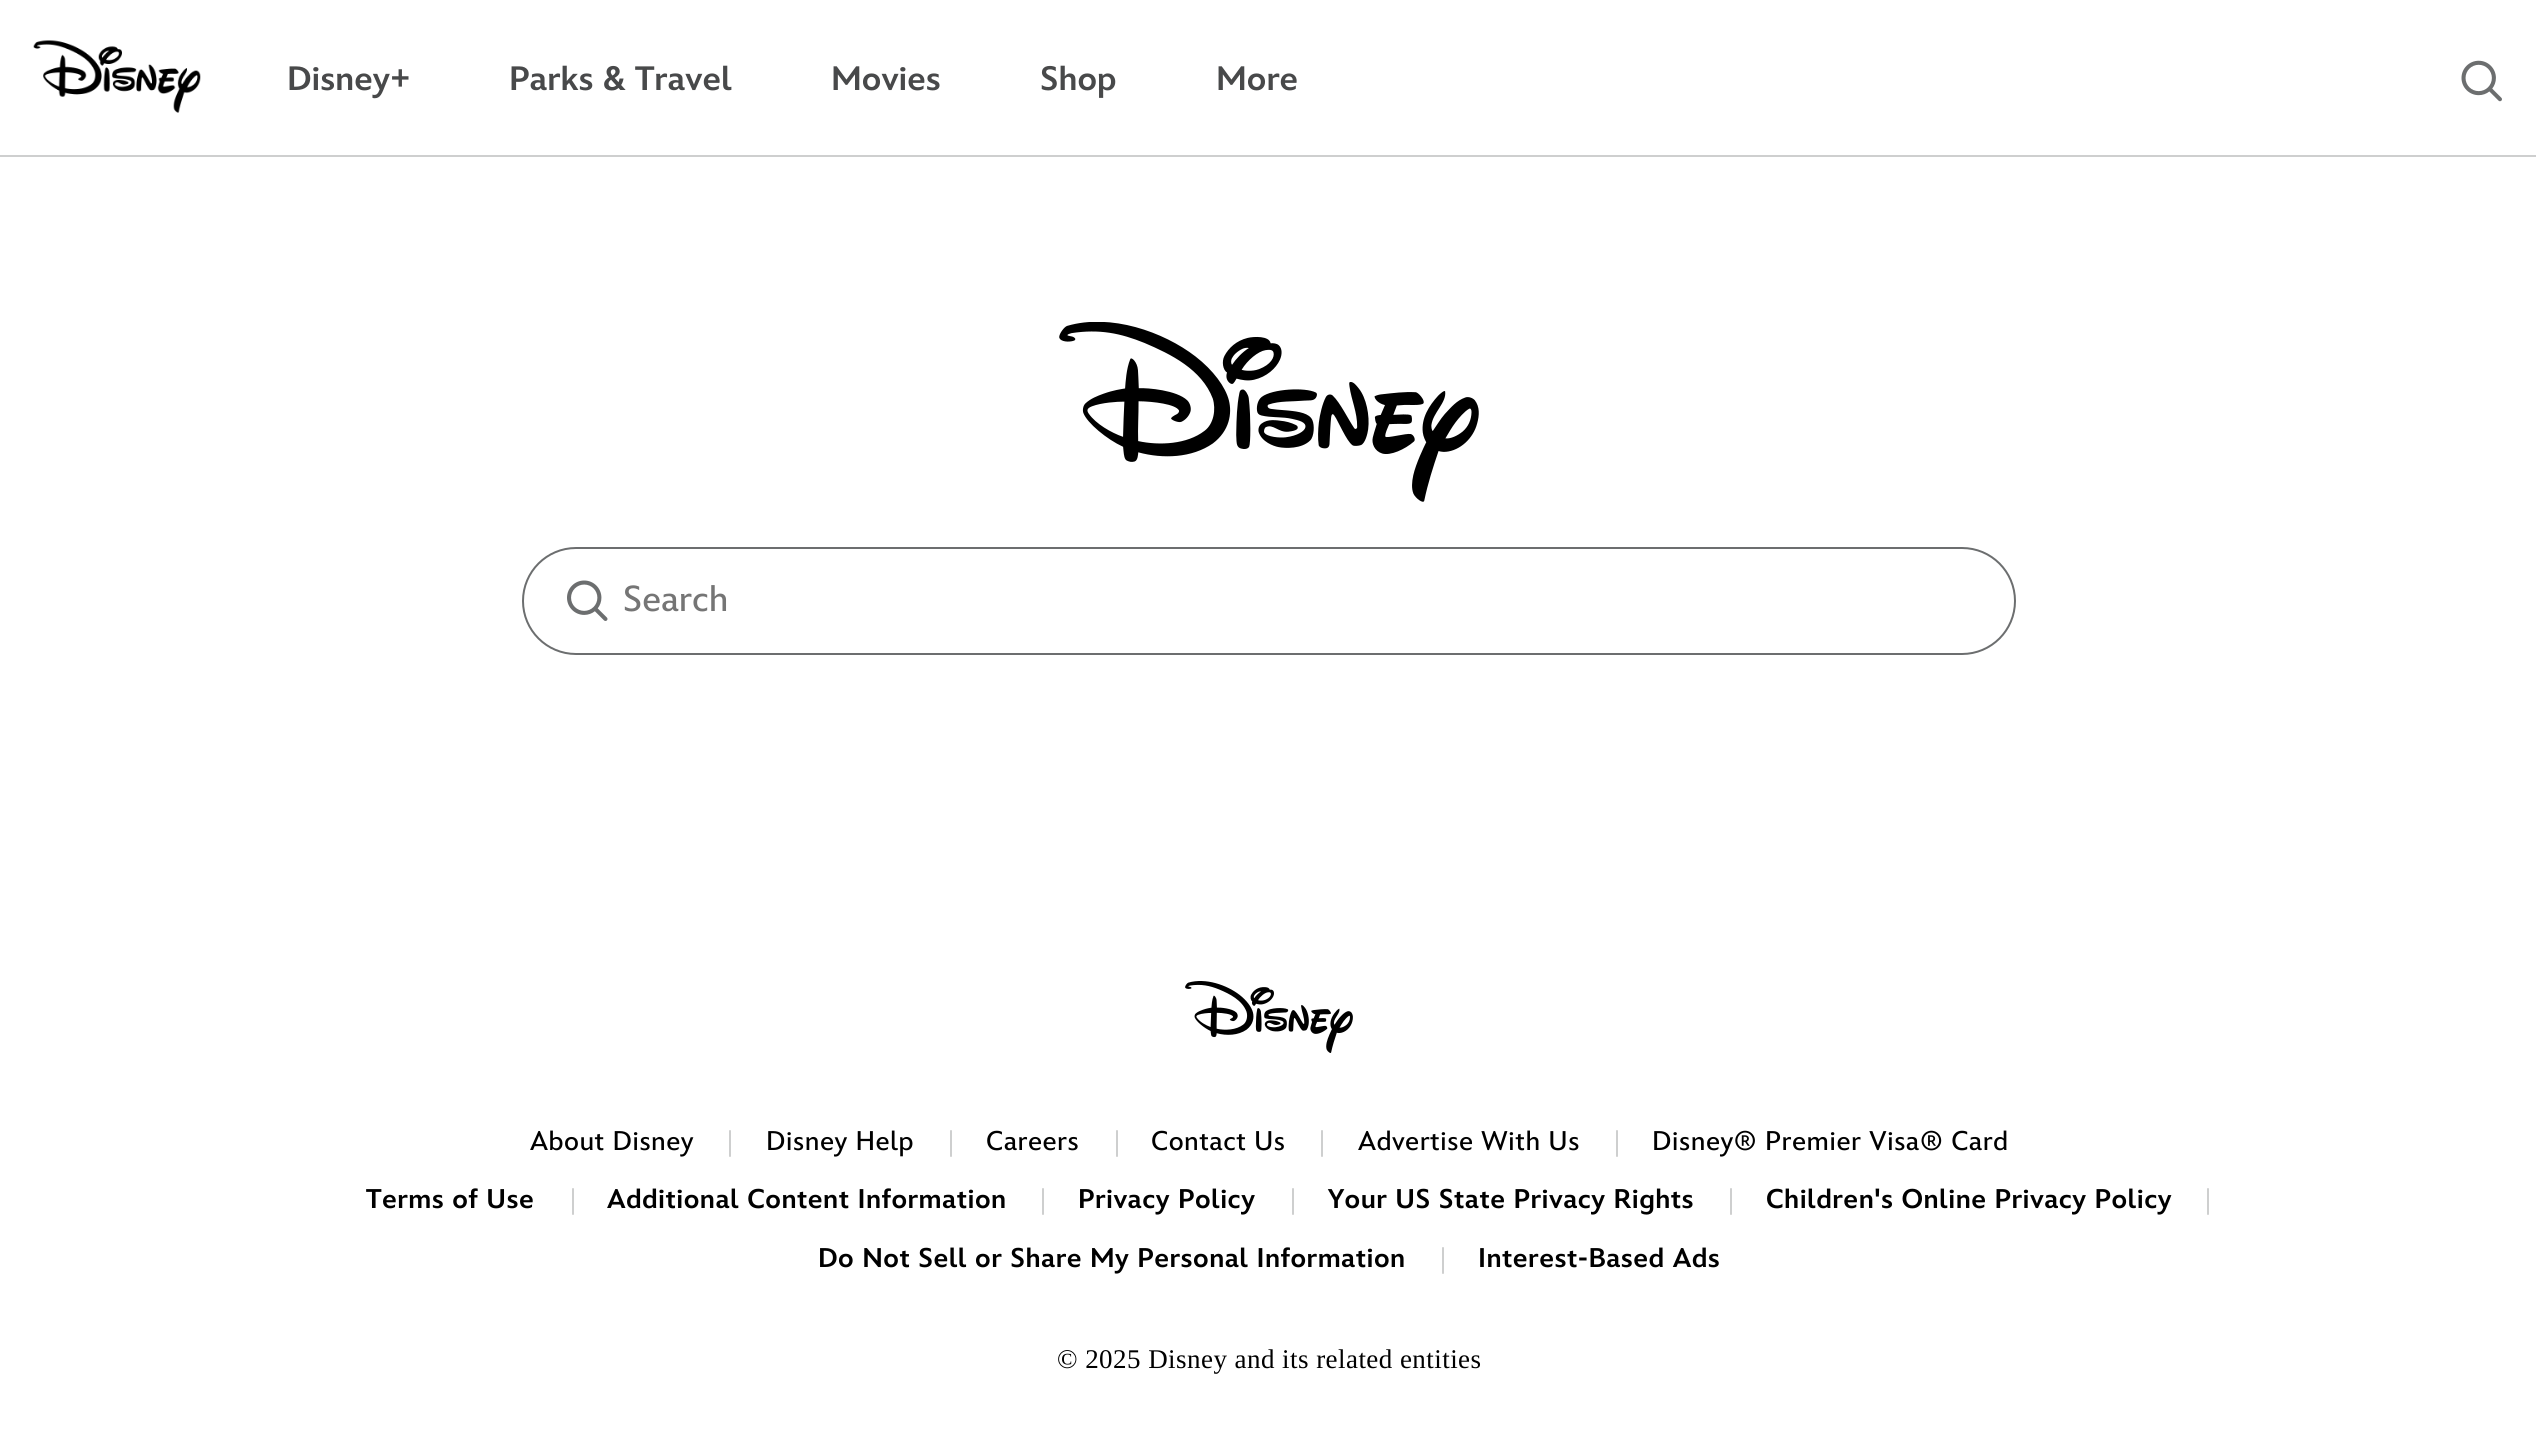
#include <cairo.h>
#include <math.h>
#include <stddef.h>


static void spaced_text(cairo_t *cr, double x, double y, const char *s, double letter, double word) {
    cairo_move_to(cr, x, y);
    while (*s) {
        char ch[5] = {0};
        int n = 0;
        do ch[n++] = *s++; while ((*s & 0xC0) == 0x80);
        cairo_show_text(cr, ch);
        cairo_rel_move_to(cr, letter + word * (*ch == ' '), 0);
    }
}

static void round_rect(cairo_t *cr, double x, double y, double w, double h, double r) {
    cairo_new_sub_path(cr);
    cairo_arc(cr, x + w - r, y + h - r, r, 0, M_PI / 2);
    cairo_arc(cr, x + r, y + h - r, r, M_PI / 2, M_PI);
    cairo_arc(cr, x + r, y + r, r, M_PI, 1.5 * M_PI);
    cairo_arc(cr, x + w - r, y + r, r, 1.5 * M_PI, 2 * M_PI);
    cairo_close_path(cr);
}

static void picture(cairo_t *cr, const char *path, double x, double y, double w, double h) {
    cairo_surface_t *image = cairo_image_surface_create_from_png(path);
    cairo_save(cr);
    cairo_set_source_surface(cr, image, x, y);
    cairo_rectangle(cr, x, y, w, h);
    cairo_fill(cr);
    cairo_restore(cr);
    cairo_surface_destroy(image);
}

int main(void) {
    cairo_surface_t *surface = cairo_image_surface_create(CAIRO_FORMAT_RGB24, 2536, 1450);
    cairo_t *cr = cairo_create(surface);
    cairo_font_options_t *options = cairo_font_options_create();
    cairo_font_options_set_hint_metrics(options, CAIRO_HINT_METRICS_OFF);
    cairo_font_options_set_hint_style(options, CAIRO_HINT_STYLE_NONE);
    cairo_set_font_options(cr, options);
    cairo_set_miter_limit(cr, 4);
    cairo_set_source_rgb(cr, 1, 1, 1);
    cairo_paint(cr);
    cairo_set_source_rgb(cr, 0.808, 0.812, 0.812);
    cairo_rectangle(cr, 0, 155, 2536, 2);
    cairo_fill(cr);
    picture(cr, "img1.png", 33, 40, 168, 73);
    cairo_select_font_face(cr, "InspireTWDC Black", CAIRO_FONT_SLANT_NORMAL, CAIRO_FONT_WEIGHT_NORMAL);
    cairo_set_font_size(cr, 33.75);
    cairo_set_source_rgb(cr, 0.282, 0.286, 0.29);
    cairo_move_to(cr, 287, 90);
    cairo_show_text(cr, "Disney+");
    cairo_move_to(cr, 509, 90);
    cairo_show_text(cr, "Parks & Travel");
    cairo_move_to(cr, 831, 90);
    cairo_show_text(cr, "Movies");
    cairo_move_to(cr, 1040, 90);
    cairo_show_text(cr, "Shop");
    cairo_move_to(cr, 1216, 90);
    cairo_show_text(cr, "More");
    picture(cr, "img2.png", 2461, 60, 41, 42);
    picture(cr, "img3.png", 1059, 322, 420, 180);
    picture(cr, "img4.png", 567, 580, 41, 41);
    round_rect(cr, 523, 548, 1492, 106, 53);
    cairo_set_source_rgb(cr, 0.424, 0.431, 0.435);
    cairo_stroke(cr);
    cairo_select_font_face(cr, "InspireTWDC Medium", CAIRO_FONT_SLANT_NORMAL, CAIRO_FONT_WEIGHT_NORMAL);
    cairo_set_font_size(cr, 36);
    cairo_set_source_rgb(cr, 0.459, 0.459, 0.459);
    cairo_move_to(cr, 623, 611);
    cairo_show_text(cr, "Search");
    picture(cr, "img5.png", 1185, 981, 168, 72);
    cairo_set_font_size(cr, 27);
    cairo_set_source_rgb(cr, 0, 0, 0);
    spaced_text(cr, 530, 1150, "About Disney", 0.45, 0);
    cairo_set_source_rgb(cr, 0.808, 0.812, 0.812);
    round_rect(cr, 729, 1130, 2, 27, 1);
    cairo_fill(cr);
    cairo_set_source_rgb(cr, 0, 0, 0);
    spaced_text(cr, 766, 1150, "Disney Help", 0.45, 0);
    cairo_set_source_rgb(cr, 0.808, 0.812, 0.812);
    round_rect(cr, 950, 1130, 2, 27, 1);
    cairo_fill(cr);
    cairo_set_source_rgb(cr, 0, 0, 0);
    spaced_text(cr, 986, 1150, "Careers", 0.45, 0);
    cairo_set_source_rgb(cr, 0.808, 0.812, 0.812);
    round_rect(cr, 1116, 1130, 2, 27, 1);
    cairo_fill(cr);
    cairo_set_source_rgb(cr, 0, 0, 0);
    spaced_text(cr, 1151, 1150, "Contact Us", 0.45, 0);
    cairo_set_source_rgb(cr, 0.808, 0.812, 0.812);
    round_rect(cr, 1321, 1130, 2, 27, 1);
    cairo_fill(cr);
    cairo_set_source_rgb(cr, 0, 0, 0);
    spaced_text(cr, 1358, 1150, "Advertise With Us", 0.45, 0);
    cairo_set_source_rgb(cr, 0.808, 0.812, 0.812);
    round_rect(cr, 1616, 1130, 2, 27, 1);
    cairo_fill(cr);
    cairo_set_source_rgb(cr, 0, 0, 0);
    spaced_text(cr, 1652, 1150, "Disney® Premier Visa® Card", 0.45, 0);
    cairo_select_font_face(cr, "InspireTWDC Black", CAIRO_FONT_SLANT_NORMAL, CAIRO_FONT_WEIGHT_NORMAL);
    spaced_text(cr, 366, 1208, "Terms of Use", 0.45, 0);
    cairo_set_source_rgb(cr, 0.808, 0.812, 0.812);
    round_rect(cr, 572, 1188, 2, 27, 1);
    cairo_fill(cr);
    cairo_set_source_rgb(cr, 0, 0, 0);
    spaced_text(cr, 607, 1208, "Additional Content Information", 0.45, 0);
    cairo_set_source_rgb(cr, 0.808, 0.812, 0.812);
    round_rect(cr, 1042, 1188, 2, 27, 1);
    cairo_fill(cr);
    cairo_set_source_rgb(cr, 0, 0, 0);
    spaced_text(cr, 1078, 1208, "Privacy Policy", 0.45, 0);
    cairo_set_source_rgb(cr, 0.808, 0.812, 0.812);
    round_rect(cr, 1292, 1188, 2, 27, 1);
    cairo_fill(cr);
    cairo_set_source_rgb(cr, 0, 0, 0);
    spaced_text(cr, 1328, 1208, "Your US State Privacy Rights", 0.45, 0);
    cairo_set_source_rgb(cr, 0.808, 0.812, 0.812);
    round_rect(cr, 1730, 1188, 2, 27, 1);
    cairo_fill(cr);
    cairo_set_source_rgb(cr, 0, 0, 0);
    spaced_text(cr, 1766, 1208, "Children's Online Privacy Policy", 0.45, 0);
    cairo_set_source_rgb(cr, 0.808, 0.812, 0.812);
    round_rect(cr, 2207, 1188, 2, 27, 1);
    cairo_fill(cr);
    cairo_set_source_rgb(cr, 0, 0, 0);
    spaced_text(cr, 818, 1267, "Do Not Sell or Share My Personal Information", 0.45, 0);
    cairo_set_source_rgb(cr, 0.808, 0.812, 0.812);
    round_rect(cr, 1442, 1247, 2, 27, 1);
    cairo_fill(cr);
    cairo_set_source_rgb(cr, 0, 0, 0);
    spaced_text(cr, 1478, 1267, "Interest-Based Ads", 0.45, 0);
    cairo_select_font_face(cr, "Liberation Serif", CAIRO_FONT_SLANT_NORMAL, CAIRO_FONT_WEIGHT_NORMAL);
    spaced_text(cr, 1057, 1368, "© 2025 Disney and its related entities", 0.45, 0);
    cairo_surface_write_to_png(surface, "page.png");
    cairo_font_options_destroy(options);
    cairo_destroy(cr);
    cairo_surface_destroy(surface);
    return 0;
}
